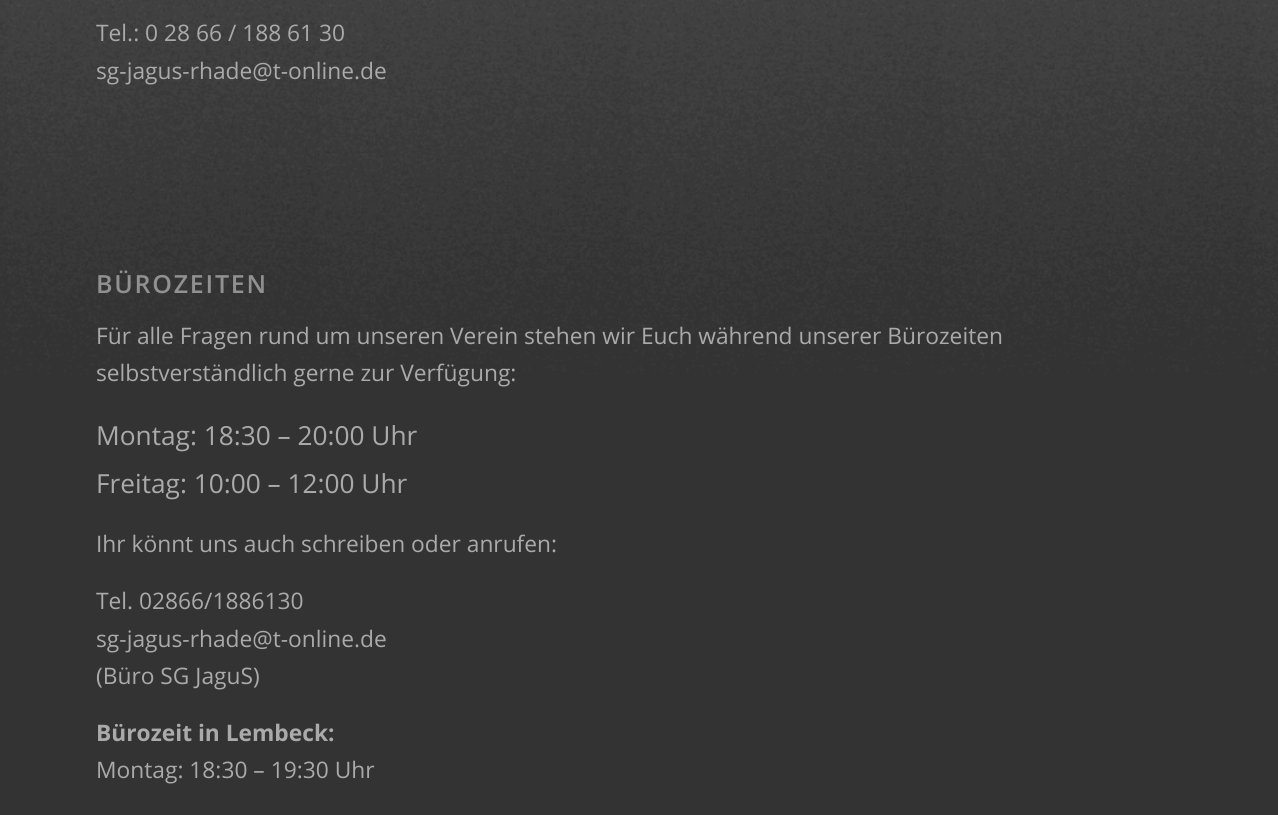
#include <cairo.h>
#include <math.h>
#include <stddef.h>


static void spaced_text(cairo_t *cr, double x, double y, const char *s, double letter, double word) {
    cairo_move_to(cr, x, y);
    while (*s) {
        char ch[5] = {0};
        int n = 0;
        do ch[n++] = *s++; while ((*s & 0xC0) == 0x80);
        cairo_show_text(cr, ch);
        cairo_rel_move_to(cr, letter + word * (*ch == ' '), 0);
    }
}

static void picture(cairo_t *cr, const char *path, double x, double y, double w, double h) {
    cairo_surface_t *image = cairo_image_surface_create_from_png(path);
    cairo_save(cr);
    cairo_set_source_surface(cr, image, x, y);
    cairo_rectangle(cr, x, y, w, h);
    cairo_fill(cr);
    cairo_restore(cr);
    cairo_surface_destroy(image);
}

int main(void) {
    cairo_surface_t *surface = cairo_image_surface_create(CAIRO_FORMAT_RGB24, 1278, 815);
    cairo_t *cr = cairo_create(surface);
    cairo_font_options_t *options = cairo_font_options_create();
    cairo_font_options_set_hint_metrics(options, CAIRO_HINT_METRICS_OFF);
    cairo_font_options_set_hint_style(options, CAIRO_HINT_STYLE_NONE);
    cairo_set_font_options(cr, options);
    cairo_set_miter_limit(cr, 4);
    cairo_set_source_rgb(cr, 0.2, 0.2, 0.2);
    cairo_paint(cr);
    picture(cr, "img1.png", 0, 0, 1278, 375);
    cairo_select_font_face(cr, "Open Sans", CAIRO_FONT_SLANT_NORMAL, CAIRO_FONT_WEIGHT_NORMAL);
    cairo_set_font_size(cr, 22.75);
    cairo_set_source_rgb(cr, 0.667, 0.667, 0.667);
    cairo_move_to(cr, 96, 41);
    cairo_show_text(cr, "Tel.: 0 28 66 / 188 61 30");
    cairo_move_to(cr, 96, 79);
    cairo_show_text(cr, "sg-jagus-rhade@t-online.de");
    cairo_select_font_face(cr, "Open Sans SemiBold", CAIRO_FONT_SLANT_NORMAL, CAIRO_FONT_WEIGHT_NORMAL);
    cairo_set_font_size(cr, 25);
    cairo_set_source_rgb(cr, 0.569, 0.569, 0.569);
    spaced_text(cr, 96, 293, "BÜROZEITEN", 1.75, 0);
    cairo_select_font_face(cr, "Open Sans", CAIRO_FONT_SLANT_NORMAL, CAIRO_FONT_WEIGHT_NORMAL);
    cairo_set_font_size(cr, 22.75);
    cairo_set_source_rgb(cr, 0.667, 0.667, 0.667);
    cairo_move_to(cr, 96, 344);
    cairo_show_text(cr, "Für alle Fragen rund um unseren Verein stehen wir Euch während unserer Bürozeiten");
    cairo_move_to(cr, 96, 381);
    cairo_show_text(cr, "selbstverständlich gerne zur Verfügung:");
    cairo_set_font_size(cr, 26.25);
    cairo_move_to(cr, 96, 445);
    cairo_show_text(cr, "Montag: 18:30 – 20:00 Uhr");
    cairo_move_to(cr, 96, 493);
    cairo_show_text(cr, "Freitag: 10:00 – 12:00 Uhr");
    cairo_set_font_size(cr, 22.75);
    cairo_move_to(cr, 96, 552);
    cairo_show_text(cr, "Ihr könnt uns auch schreiben oder anrufen:");
    cairo_move_to(cr, 96, 609);
    cairo_show_text(cr, "Tel. 02866/1886130");
    cairo_move_to(cr, 96, 647);
    cairo_show_text(cr, "sg-jagus-rhade@t-online.de");
    cairo_move_to(cr, 96, 684);
    cairo_show_text(cr, "(Büro SG JaguS)");
    cairo_select_font_face(cr, "Open Sans", CAIRO_FONT_SLANT_NORMAL, CAIRO_FONT_WEIGHT_BOLD);
    cairo_move_to(cr, 96, 741);
    cairo_show_text(cr, "Bürozeit in Lembeck:");
    cairo_select_font_face(cr, "Open Sans", CAIRO_FONT_SLANT_NORMAL, CAIRO_FONT_WEIGHT_NORMAL);
    cairo_move_to(cr, 96, 778);
    cairo_show_text(cr, "Montag: 18:30 – 19:30 Uhr");
    cairo_surface_write_to_png(surface, "page.png");
    cairo_font_options_destroy(options);
    cairo_destroy(cr);
    cairo_surface_destroy(surface);
    return 0;
}
